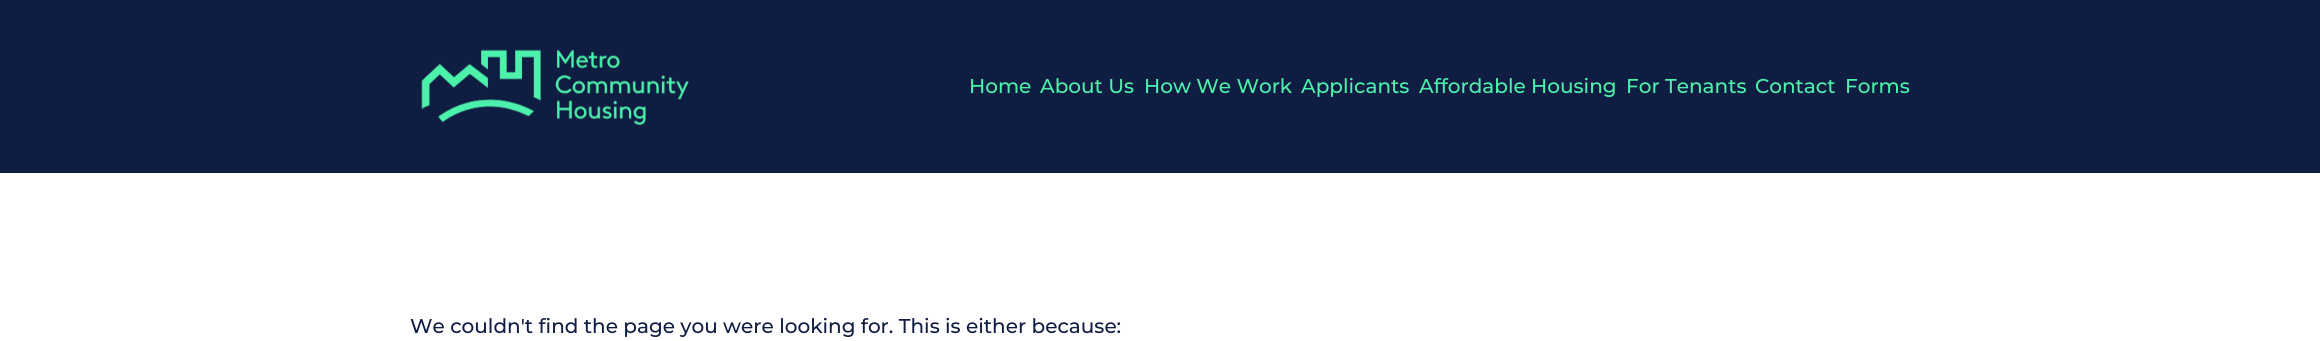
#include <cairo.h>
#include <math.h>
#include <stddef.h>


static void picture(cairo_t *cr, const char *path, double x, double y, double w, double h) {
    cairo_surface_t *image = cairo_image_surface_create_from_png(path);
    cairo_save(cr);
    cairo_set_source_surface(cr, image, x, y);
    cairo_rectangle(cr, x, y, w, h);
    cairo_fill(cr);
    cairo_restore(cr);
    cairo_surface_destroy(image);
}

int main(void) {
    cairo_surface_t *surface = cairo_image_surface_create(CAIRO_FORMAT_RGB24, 2320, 341);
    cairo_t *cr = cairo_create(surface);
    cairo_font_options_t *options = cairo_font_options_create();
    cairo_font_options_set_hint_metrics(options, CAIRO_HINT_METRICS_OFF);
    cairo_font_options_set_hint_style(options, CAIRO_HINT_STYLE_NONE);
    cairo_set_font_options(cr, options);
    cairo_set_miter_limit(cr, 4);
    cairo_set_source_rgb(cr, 1, 1, 1);
    cairo_paint(cr);
    cairo_set_source_rgb(cr, 0.063, 0.114, 0.259);
    cairo_rectangle(cr, 0, 0, 2320, 173);
    cairo_fill(cr);
    picture(cr, "img1.png", 421, 49, 268, 77);
    cairo_select_font_face(cr, "Montserrat Medium", CAIRO_FONT_SLANT_NORMAL, CAIRO_FONT_WEIGHT_NORMAL);
    cairo_set_font_size(cr, 20);
    cairo_set_source_rgb(cr, 0.298, 0.949, 0.671);
    cairo_move_to(cr, 969, 93);
    cairo_show_text(cr, "Home");
    cairo_move_to(cr, 1040, 93);
    cairo_show_text(cr, "About Us");
    cairo_move_to(cr, 1144, 93);
    cairo_show_text(cr, "How We Work");
    cairo_move_to(cr, 1301, 93);
    cairo_show_text(cr, "Applicants");
    cairo_move_to(cr, 1419, 93);
    cairo_show_text(cr, "Affordable Housing");
    cairo_move_to(cr, 1626, 93);
    cairo_show_text(cr, "For Tenants");
    cairo_move_to(cr, 1755, 93);
    cairo_show_text(cr, "Contact");
    cairo_move_to(cr, 1845, 93);
    cairo_show_text(cr, "Forms");
    cairo_set_source_rgb(cr, 0.063, 0.114, 0.259);
    cairo_move_to(cr, 410, 333);
    cairo_show_text(cr, "We couldn't find the page you were looking for. This is either because:");
    cairo_surface_write_to_png(surface, "page.png");
    cairo_font_options_destroy(options);
    cairo_destroy(cr);
    cairo_surface_destroy(surface);
    return 0;
}
